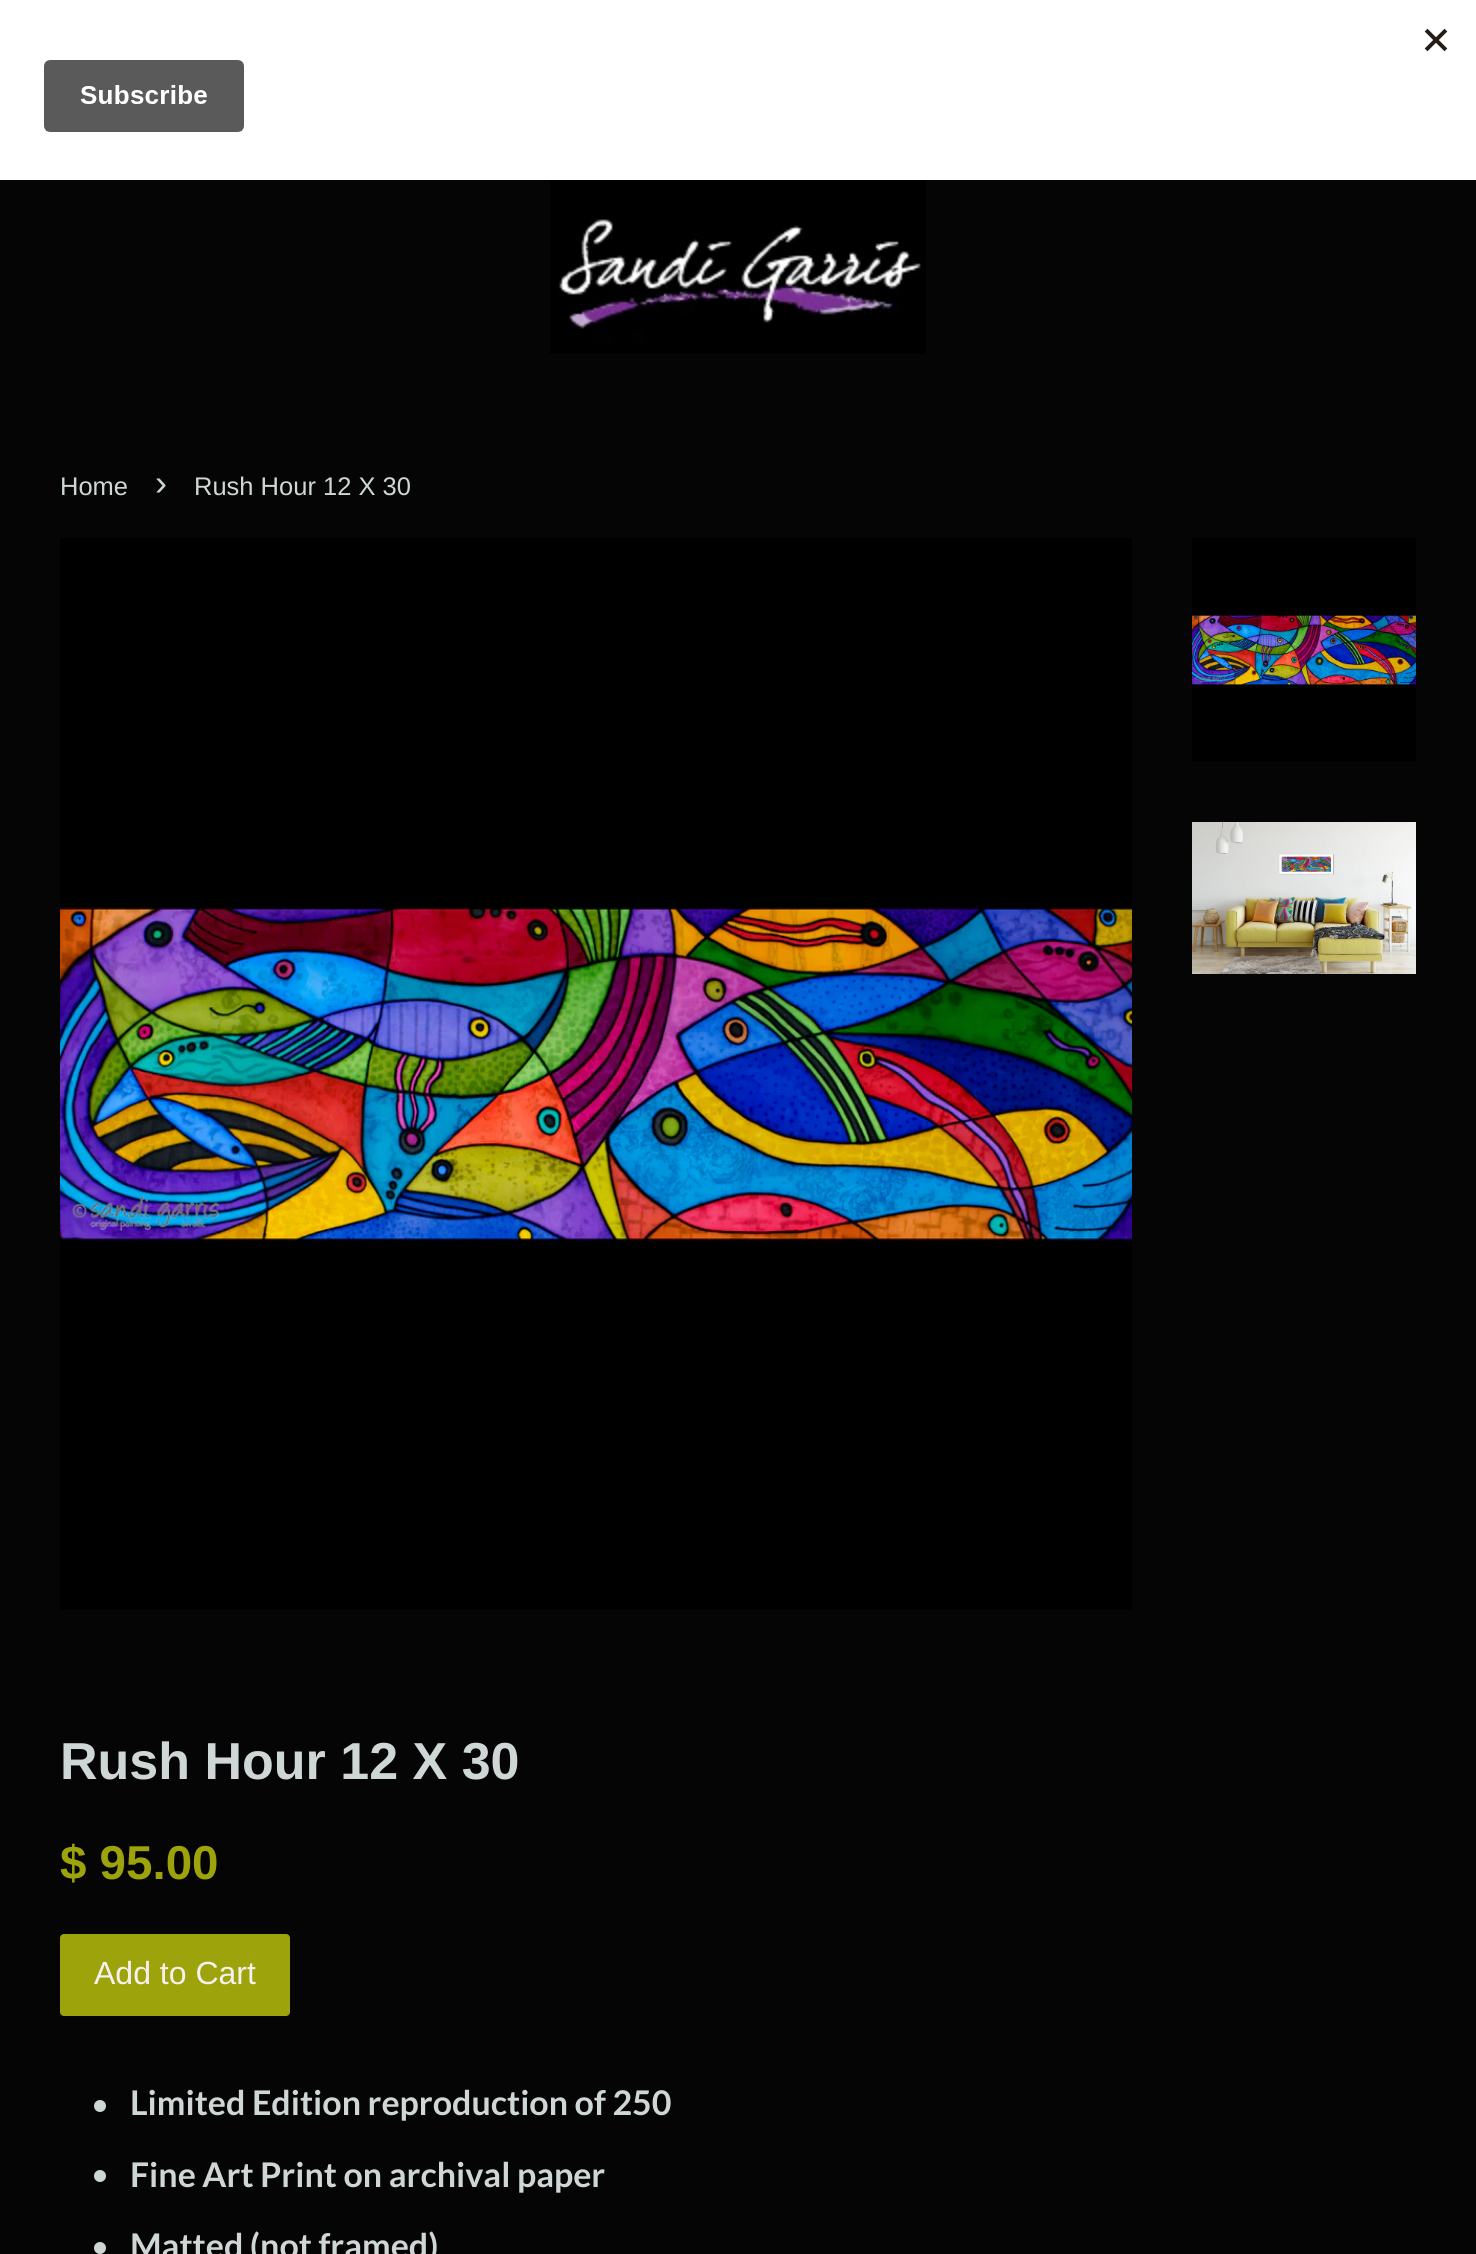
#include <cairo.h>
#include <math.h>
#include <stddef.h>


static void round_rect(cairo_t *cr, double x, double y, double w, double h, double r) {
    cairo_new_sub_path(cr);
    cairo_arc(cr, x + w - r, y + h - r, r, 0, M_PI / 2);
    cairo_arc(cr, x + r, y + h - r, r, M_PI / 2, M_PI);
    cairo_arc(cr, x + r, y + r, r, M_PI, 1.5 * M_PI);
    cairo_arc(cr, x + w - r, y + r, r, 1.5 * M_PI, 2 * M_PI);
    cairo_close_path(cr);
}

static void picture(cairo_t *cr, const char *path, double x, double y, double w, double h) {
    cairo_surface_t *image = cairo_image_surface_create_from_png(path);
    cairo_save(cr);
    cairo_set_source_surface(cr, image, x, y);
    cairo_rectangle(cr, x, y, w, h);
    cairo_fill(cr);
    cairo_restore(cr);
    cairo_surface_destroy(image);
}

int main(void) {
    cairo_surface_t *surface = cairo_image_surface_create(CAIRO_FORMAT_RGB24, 1476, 2254);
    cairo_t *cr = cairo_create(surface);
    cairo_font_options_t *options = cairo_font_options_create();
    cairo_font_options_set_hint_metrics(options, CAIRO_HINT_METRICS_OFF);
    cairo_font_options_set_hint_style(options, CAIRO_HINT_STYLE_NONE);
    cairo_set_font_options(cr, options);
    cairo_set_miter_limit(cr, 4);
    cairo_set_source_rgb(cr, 0.02, 0.02, 0.02);
    cairo_paint(cr);
    cairo_set_source_rgb(cr, 1, 1, 1);
    cairo_rectangle(cr, 0, 0, 1476, 180);
    cairo_fill(cr);
    picture(cr, "img1.png", 44, 28, 1404, 104);
    picture(cr, "img2.png", 550, 180, 376, 174);
    cairo_select_font_face(cr, "Liberation Sans", CAIRO_FONT_SLANT_NORMAL, CAIRO_FONT_WEIGHT_NORMAL);
    cairo_set_font_size(cr, 25.5);
    cairo_set_source_rgb(cr, 0.812, 0.843, 0.839);
    cairo_move_to(cr, 60, 495);
    cairo_show_text(cr, "Home");
    cairo_set_font_size(cr, 36);
    cairo_move_to(cr, 155, 495);
    cairo_show_text(cr, "›");
    cairo_set_font_size(cr, 25.5);
    cairo_move_to(cr, 194, 495);
    cairo_show_text(cr, "Rush Hour 12 X 30");
    picture(cr, "img3.png", 60, 538, 1072, 1072);
    picture(cr, "img4.png", 1192, 538, 224, 224);
    picture(cr, "img5.png", 1192, 822, 224, 152);
    cairo_select_font_face(cr, "Liberation Sans", CAIRO_FONT_SLANT_NORMAL, CAIRO_FONT_WEIGHT_BOLD);
    cairo_set_font_size(cr, 52);
    cairo_move_to(cr, 60, 1779);
    cairo_show_text(cr, "Rush Hour 12 X 30");
    cairo_set_font_size(cr, 47.5);
    cairo_set_source_rgb(cr, 0.616, 0.643, 0.043);
    cairo_move_to(cr, 60, 1879);
    cairo_show_text(cr, "$ 95.00");
    round_rect(cr, 60, 1934, 230, 82, 4);
    cairo_fill(cr);
    cairo_select_font_face(cr, "Liberation Sans", CAIRO_FONT_SLANT_NORMAL, CAIRO_FONT_WEIGHT_NORMAL);
    cairo_set_font_size(cr, 32);
    cairo_set_source_rgb(cr, 0.961, 0.941, 0.941);
    cairo_move_to(cr, 94, 1984);
    cairo_show_text(cr, "Add to Cart");
    cairo_set_source_rgb(cr, 0.812, 0.843, 0.839);
    cairo_new_path(cr);
    cairo_arc(cr, 100, 2106, 6, 0, 2 * M_PI);
    cairo_fill(cr);
    cairo_select_font_face(cr, "Lato", CAIRO_FONT_SLANT_NORMAL, CAIRO_FONT_WEIGHT_BOLD);
    cairo_set_font_size(cr, 34);
    cairo_move_to(cr, 130, 2115);
    cairo_show_text(cr, "Limited Edition reproduction of 250");
    cairo_new_path(cr);
    cairo_arc(cr, 100, 2176, 6, 0, 2 * M_PI);
    cairo_fill(cr);
    cairo_move_to(cr, 130, 2187);
    cairo_show_text(cr, "Fine Art Print on archival paper");
    cairo_new_path(cr);
    cairo_arc(cr, 100, 2248, 6, 0, 2 * M_PI);
    cairo_fill(cr);
    cairo_move_to(cr, 130, 2258);
    cairo_show_text(cr, "Matted (not framed)");
    cairo_surface_write_to_png(surface, "page.png");
    cairo_font_options_destroy(options);
    cairo_destroy(cr);
    cairo_surface_destroy(surface);
    return 0;
}
